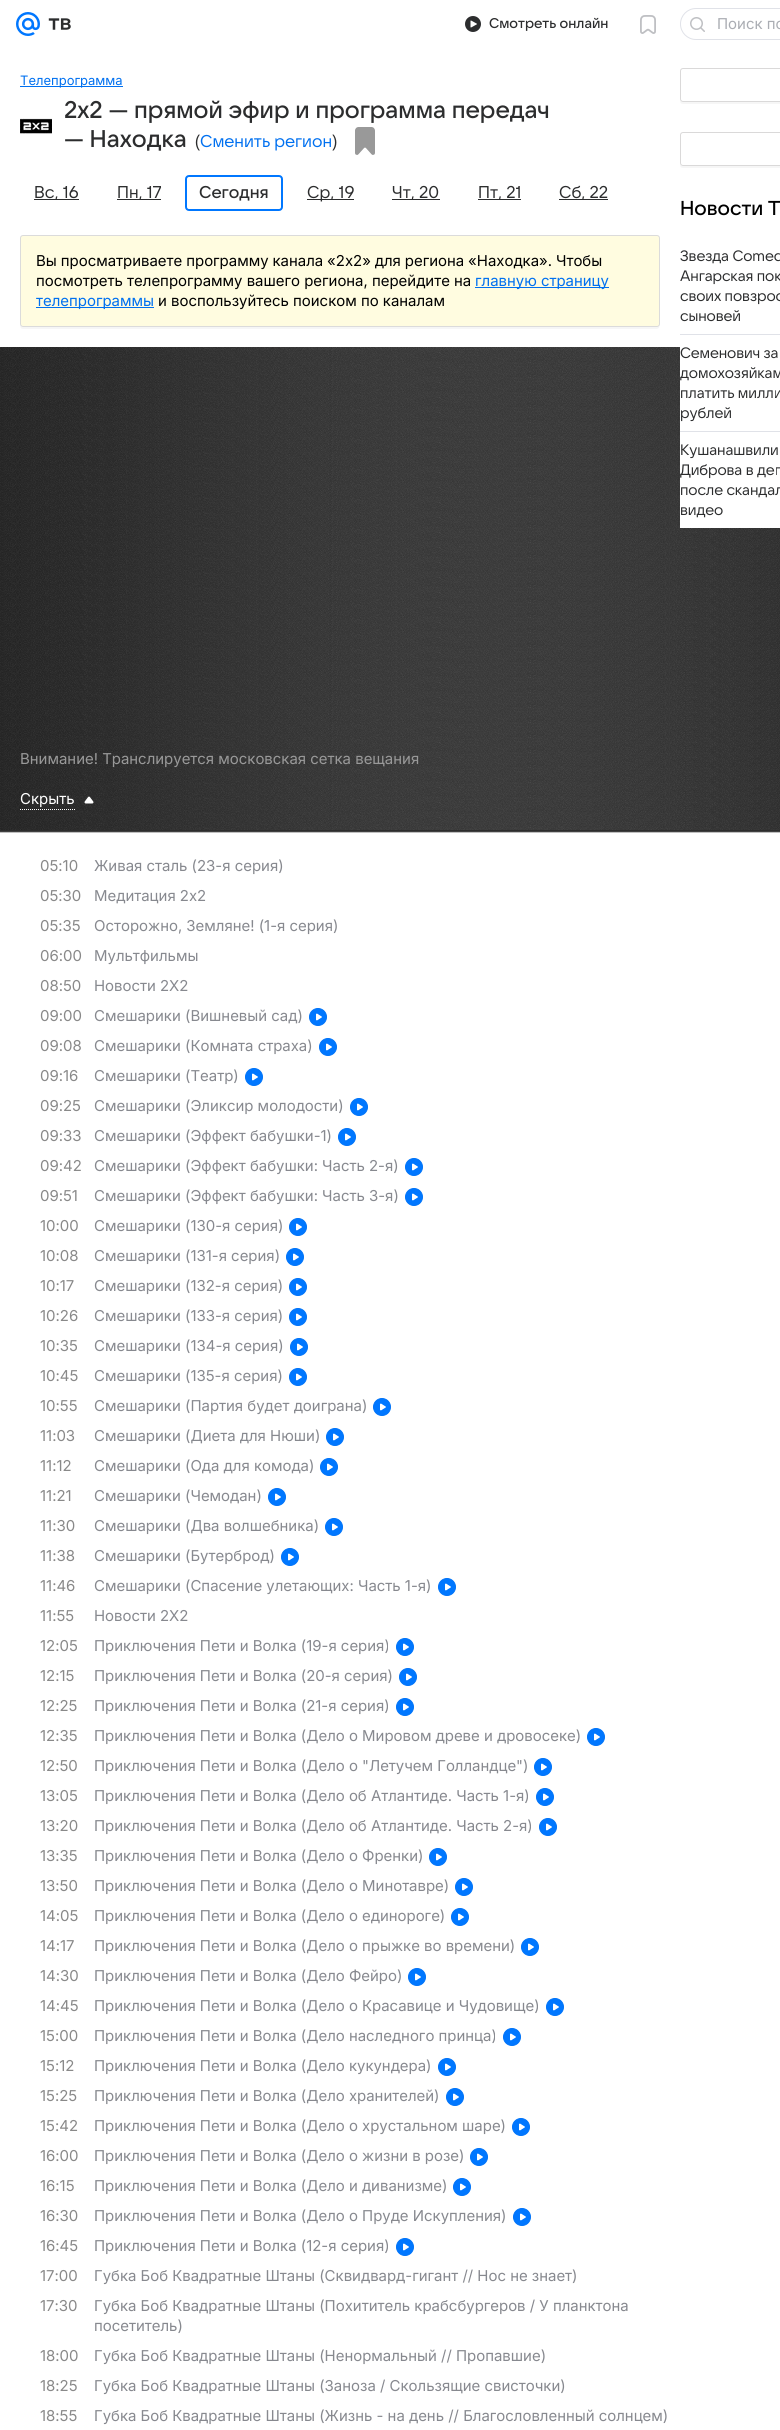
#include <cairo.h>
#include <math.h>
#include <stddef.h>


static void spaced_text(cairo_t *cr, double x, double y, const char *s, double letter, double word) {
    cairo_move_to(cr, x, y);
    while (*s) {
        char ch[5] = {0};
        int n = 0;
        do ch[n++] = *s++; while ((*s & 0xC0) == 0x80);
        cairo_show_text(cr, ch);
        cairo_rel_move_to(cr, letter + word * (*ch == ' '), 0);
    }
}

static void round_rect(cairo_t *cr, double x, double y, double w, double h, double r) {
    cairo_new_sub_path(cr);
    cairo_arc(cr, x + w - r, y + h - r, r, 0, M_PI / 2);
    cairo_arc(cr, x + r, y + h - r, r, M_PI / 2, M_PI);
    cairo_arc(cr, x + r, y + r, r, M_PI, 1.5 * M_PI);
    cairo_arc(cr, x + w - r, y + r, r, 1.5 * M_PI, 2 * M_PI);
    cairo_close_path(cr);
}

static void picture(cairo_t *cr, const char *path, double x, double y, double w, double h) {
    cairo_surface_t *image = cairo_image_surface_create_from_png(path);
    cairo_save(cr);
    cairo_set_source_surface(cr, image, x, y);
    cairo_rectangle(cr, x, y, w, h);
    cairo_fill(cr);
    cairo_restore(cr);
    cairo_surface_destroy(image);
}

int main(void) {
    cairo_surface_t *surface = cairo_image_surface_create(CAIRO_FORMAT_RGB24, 780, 2430);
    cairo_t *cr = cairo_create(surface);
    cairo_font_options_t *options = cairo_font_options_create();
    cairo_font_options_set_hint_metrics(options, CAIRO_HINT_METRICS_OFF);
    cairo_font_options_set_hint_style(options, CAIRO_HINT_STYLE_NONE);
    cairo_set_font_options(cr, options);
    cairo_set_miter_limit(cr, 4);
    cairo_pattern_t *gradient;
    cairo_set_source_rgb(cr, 1, 1, 1);
    cairo_paint(cr);
    picture(cr, "img1.png", 16, 12, 24, 24);
    picture(cr, "img2.png", 48, 18, 23, 12);
    picture(cr, "img3.png", 465, 16, 16, 16);
    cairo_select_font_face(cr, "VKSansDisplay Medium", CAIRO_FONT_SLANT_NORMAL, CAIRO_FONT_WEIGHT_NORMAL);
    cairo_set_font_size(cr, 14);
    cairo_set_source_rgb(cr, 0.173, 0.176, 0.18);
    cairo_move_to(cr, 489, 28);
    cairo_show_text(cr, "Смотреть онлайн");
    picture(cr, "img4.png", 640, 15, 16, 19);
    round_rect(cr, 680.5, 8.5, 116, 31, 15.5);
    cairo_set_source_rgb(cr, 0.878, 0.886, 0.91);
    cairo_set_line_width(cr, 1);
    cairo_stroke(cr);
    picture(cr, "img5.png", 690, 17, 15, 15);
    cairo_select_font_face(cr, "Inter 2", CAIRO_FONT_SLANT_NORMAL, CAIRO_FONT_WEIGHT_NORMAL);
    cairo_set_font_size(cr, 15);
    cairo_set_source_rgb(cr, 0.667, 0.678, 0.702);
    cairo_move_to(cr, 717, 29);
    cairo_show_text(cr, "Поиск по");
    cairo_set_source_rgb(cr, 0, 0.439, 0.941);
    cairo_rectangle(cr, 20, 86, 103, 1);
    cairo_fill(cr);
    cairo_select_font_face(cr, "Inter", CAIRO_FONT_SLANT_NORMAL, CAIRO_FONT_WEIGHT_NORMAL);
    cairo_set_font_size(cr, 13);
    cairo_move_to(cr, 20, 85);
    cairo_show_text(cr, "Телепрограмма");
    picture(cr, "img6.png", 20, 118, 32, 16);
    cairo_select_font_face(cr, "VKSansDisplay Medium", CAIRO_FONT_SLANT_NORMAL, CAIRO_FONT_WEIGHT_NORMAL);
    cairo_set_font_size(cr, 24);
    cairo_set_source_rgb(cr, 0.173, 0.176, 0.18);
    cairo_move_to(cr, 64, 118);
    cairo_show_text(cr, "2x2 — прямой эфир и программа передач");
    cairo_move_to(cr, 64, 147);
    cairo_show_text(cr, "— Находка");
    cairo_select_font_face(cr, "VKSansDisplay", CAIRO_FONT_SLANT_NORMAL, CAIRO_FONT_WEIGHT_NORMAL);
    cairo_set_font_size(cr, 17);
    cairo_move_to(cr, 195, 147);
    cairo_show_text(cr, "(");
    cairo_set_source_rgb(cr, 0, 0.439, 0.941);
    cairo_move_to(cr, 200, 147);
    cairo_show_text(cr, "Сменить регион");
    cairo_set_source_rgb(cr, 0.173, 0.176, 0.18);
    cairo_move_to(cr, 332, 147);
    cairo_show_text(cr, ")");
    picture(cr, "img7.png", 355, 127, 20, 28);
    cairo_rectangle(cr, 34, 199, 45, 1);
    cairo_fill(cr);
    cairo_move_to(cr, 34, 198);
    cairo_show_text(cr, "Вс, 16");
    cairo_rectangle(cr, 117, 199, 44, 1);
    cairo_fill(cr);
    cairo_move_to(cr, 117, 198);
    cairo_show_text(cr, "Пн, 17");
    round_rect(cr, 186, 176, 96, 34, 3);
    cairo_set_source_rgb(cr, 0, 0.467, 1);
    cairo_set_line_width(cr, 2);
    cairo_stroke(cr);
    cairo_select_font_face(cr, "VKSansDisplay Medium", CAIRO_FONT_SLANT_NORMAL, CAIRO_FONT_WEIGHT_NORMAL);
    cairo_set_source_rgb(cr, 0.173, 0.176, 0.18);
    cairo_move_to(cr, 199, 198);
    cairo_show_text(cr, "Сегодня");
    cairo_rectangle(cr, 307, 199, 47, 1);
    cairo_fill(cr);
    cairo_select_font_face(cr, "VKSansDisplay", CAIRO_FONT_SLANT_NORMAL, CAIRO_FONT_WEIGHT_NORMAL);
    cairo_move_to(cr, 307, 198);
    cairo_show_text(cr, "Ср, 19");
    cairo_rectangle(cr, 392, 199, 48, 1);
    cairo_fill(cr);
    cairo_move_to(cr, 392, 198);
    cairo_show_text(cr, "Чт, 20");
    cairo_rectangle(cr, 478, 199, 43, 1);
    cairo_fill(cr);
    cairo_move_to(cr, 478, 198);
    cairo_show_text(cr, "Пт, 21");
    cairo_rectangle(cr, 559, 199, 49, 1);
    cairo_fill(cr);
    cairo_move_to(cr, 559, 198);
    cairo_show_text(cr, "Сб, 22");
    cairo_set_source_rgb(cr, 0.961, 0.961, 0.961);
    cairo_new_path(cr);
    cairo_move_to(cr, 20, 324);
    cairo_curve_to(cr, 20, 326, 20, 329, 23, 329);
    cairo_line_to(cr, 657, 329);
    cairo_line_to(cr, 659, 328);
    cairo_line_to(cr, 660, 324);
    cairo_curve_to(cr, 660, 326, 659, 327, 657, 327);
    cairo_line_to(cr, 23, 327);
    cairo_curve_to(cr, 21, 327, 20, 326, 20, 324);
    cairo_close_path(cr);
    cairo_fill(cr);
    cairo_set_source_rgb(cr, 1, 0.988, 0.878);
    round_rect(cr, 20.5, 235.5, 639, 91, 2.5);
    cairo_fill_preserve(cr);
    cairo_set_source_rgb(cr, 0.859, 0.859, 0.859);
    cairo_set_line_width(cr, 1);
    cairo_stroke(cr);
    cairo_select_font_face(cr, "Inter 2", CAIRO_FONT_SLANT_NORMAL, CAIRO_FONT_WEIGHT_NORMAL);
    cairo_set_font_size(cr, 15);
    cairo_set_source_rgb(cr, 0, 0, 0);
    spaced_text(cr, 36, 266, "Вы просматриваете программу канала «2x2» для региона «Находка». Чтобы", 0, -0.25);
    cairo_move_to(cr, 36, 286);
    cairo_show_text(cr, "посмотреть телепрограмму вашего региона, перейдите на");
    cairo_set_source_rgb(cr, 0, 0.439, 0.941);
    cairo_rectangle(cr, 475, 287, 134, 1);
    cairo_fill(cr);
    cairo_move_to(cr, 475, 286);
    cairo_show_text(cr, "главную страницу");
    cairo_rectangle(cr, 36, 307, 118, 1);
    cairo_fill(cr);
    cairo_move_to(cr, 36, 306);
    cairo_show_text(cr, "телепрограммы");
    cairo_set_source_rgb(cr, 0, 0, 0);
    cairo_move_to(cr, 158, 306);
    cairo_show_text(cr, "и воспользуйтесь поиском по каналам");
    cairo_set_source_rgb(cr, 0.961, 0.961, 0.961);
    cairo_new_path(cr);
    cairo_move_to(cr, 680, 99);
    cairo_line_to(cr, 680, 101);
    cairo_curve_to(cr, 680, 103, 681, 104, 683, 104);
    cairo_line_to(cr, 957, 104);
    cairo_curve_to(cr, 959, 104, 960, 103, 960, 101);
    cairo_line_to(cr, 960, 99);
    cairo_curve_to(cr, 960, 101, 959, 102, 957, 102);
    cairo_line_to(cr, 683, 102);
    cairo_curve_to(cr, 681, 102, 680, 101, 680, 99);
    cairo_close_path(cr);
    cairo_fill(cr);
    round_rect(cr, 680.5, 68.5, 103, 33, 2.5);
    cairo_set_source_rgb(cr, 0.855, 0.851, 0.851);
    cairo_stroke(cr);
    cairo_set_source_rgb(cr, 0.961, 0.961, 0.961);
    cairo_new_path(cr);
    cairo_move_to(cr, 680, 163);
    cairo_line_to(cr, 680, 165);
    cairo_curve_to(cr, 680, 167, 681, 168, 683, 168);
    cairo_line_to(cr, 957, 168);
    cairo_curve_to(cr, 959, 168, 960, 167, 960, 165);
    cairo_line_to(cr, 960, 163);
    cairo_curve_to(cr, 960, 165, 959, 166, 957, 166);
    cairo_line_to(cr, 683, 166);
    cairo_curve_to(cr, 681, 166, 680, 165, 680, 163);
    cairo_close_path(cr);
    cairo_fill(cr);
    round_rect(cr, 680.5, 132.5, 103, 33, 2.5);
    cairo_set_source_rgb(cr, 0.855, 0.851, 0.851);
    cairo_stroke(cr);
    picture(cr, "img8.png", 0, 347, 780, 483);
    cairo_set_source_rgb(cr, 1, 1, 1);
    cairo_rectangle(cr, 680, 347, 100, 181);
    cairo_fill(cr);
    cairo_select_font_face(cr, "VKSansDisplay Medium", CAIRO_FONT_SLANT_NORMAL, CAIRO_FONT_WEIGHT_NORMAL);
    cairo_set_font_size(cr, 20);
    cairo_set_source_rgb(cr, 0, 0, 0);
    cairo_move_to(cr, 680, 215);
    cairo_show_text(cr, "Новости Т");
    cairo_select_font_face(cr, "VKSansDisplay", CAIRO_FONT_SLANT_NORMAL, CAIRO_FONT_WEIGHT_NORMAL);
    cairo_set_font_size(cr, 15);
    cairo_set_source_rgb(cr, 0.173, 0.176, 0.18);
    spaced_text(cr, 680, 261, "Звезда Comed", -0.1, 0);
    spaced_text(cr, 680, 281, "Ангарская пок", -0.1, 0);
    spaced_text(cr, 680, 301, "своих повзрос", -0.1, 0);
    spaced_text(cr, 680, 321, "сыновей", -0.1, 0);
    cairo_set_source_rgb(cr, 0.878, 0.886, 0.91);
    cairo_rectangle(cr, 680, 334, 100, 1);
    cairo_fill(cr);
    cairo_set_source_rgb(cr, 0.173, 0.176, 0.18);
    spaced_text(cr, 680, 358, "Семенович за", -0.1, 0);
    spaced_text(cr, 680, 378, "домохозяйкам", -0.1, 0);
    spaced_text(cr, 680, 398, "платить милли", -0.1, 0);
    spaced_text(cr, 680, 418, "рублей", -0.1, 0);
    cairo_set_source_rgb(cr, 0.878, 0.886, 0.91);
    cairo_rectangle(cr, 680, 431, 100, 1);
    cairo_fill(cr);
    cairo_set_source_rgb(cr, 0.173, 0.176, 0.18);
    spaced_text(cr, 680, 455, "Кушанашвили", -0.1, 0);
    spaced_text(cr, 680, 475, "Диброва в дег", -0.1, 0);
    spaced_text(cr, 680, 495, "после скандал", -0.1, 0);
    spaced_text(cr, 680, 515, "видео", -0.1, 0);
    cairo_set_source_rgb(cr, 0.173, 0.173, 0.173);
    cairo_rectangle(cr, 0, 830, 780, 1);
    cairo_fill(cr);
    cairo_select_font_face(cr, "Inter 2", CAIRO_FONT_SLANT_NORMAL, CAIRO_FONT_WEIGHT_NORMAL);
    cairo_set_source_rgb(cr, 0.6, 0.6, 0.6);
    cairo_move_to(cr, 20, 764);
    cairo_show_text(cr, "Внимание! Транслируется московская сетка вещания");
    cairo_new_path(cr);
    cairo_move_to(cr, 20, 809.5);
    cairo_line_to(cr, 75, 809.5);
    cairo_set_source_rgb(cr, 1, 1, 1);
    cairo_set_dash(cr, (double[]){1, 1}, 2, 0);
    cairo_stroke(cr);
    cairo_move_to(cr, 20, 804);
    cairo_show_text(cr, "Скрыть");
    picture(cr, "img9.png", 84, 796, 10, 8);
    gradient = cairo_pattern_create_linear(490, 831, 490, 833);
    cairo_pattern_add_color_stop_rgba(gradient, 0, 0, 0, 0, 1);
    cairo_pattern_add_color_stop_rgba(gradient, 1, 1, 1, 1, 1);
    cairo_set_source(cr, gradient);
    cairo_pattern_destroy(gradient);
    cairo_rectangle(cr, 0, 831, 780, 2);
    cairo_fill(cr);
    cairo_set_source_rgb(cr, 0.537, 0.537, 0.537);
    cairo_move_to(cr, 40, 871);
    cairo_show_text(cr, "05:10");
    cairo_set_source_rgb(cr, 0.529, 0.537, 0.561);
    cairo_move_to(cr, 94, 871);
    cairo_show_text(cr, "Живая сталь (23-я серия)");
    cairo_set_source_rgb(cr, 0.537, 0.537, 0.537);
    cairo_move_to(cr, 40, 901);
    cairo_show_text(cr, "05:30");
    cairo_set_source_rgb(cr, 0.529, 0.537, 0.561);
    cairo_move_to(cr, 94, 901);
    cairo_show_text(cr, "Медитация 2х2");
    cairo_set_source_rgb(cr, 0.537, 0.537, 0.537);
    cairo_move_to(cr, 40, 931);
    cairo_show_text(cr, "05:35");
    cairo_set_source_rgb(cr, 0.529, 0.537, 0.561);
    cairo_move_to(cr, 94, 931);
    cairo_show_text(cr, "Осторожно, Земляне! (1-я серия)");
    cairo_set_source_rgb(cr, 0.537, 0.537, 0.537);
    cairo_move_to(cr, 40, 961);
    cairo_show_text(cr, "06:00");
    cairo_set_source_rgb(cr, 0.529, 0.537, 0.561);
    cairo_move_to(cr, 94, 961);
    cairo_show_text(cr, "Мультфильмы");
    cairo_set_source_rgb(cr, 0.537, 0.537, 0.537);
    cairo_move_to(cr, 40, 991);
    cairo_show_text(cr, "08:50");
    cairo_set_source_rgb(cr, 0.529, 0.537, 0.561);
    cairo_move_to(cr, 94, 991);
    cairo_show_text(cr, "Новости 2Х2");
    cairo_set_source_rgb(cr, 0.537, 0.537, 0.537);
    cairo_move_to(cr, 40, 1021);
    cairo_show_text(cr, "09:00");
    cairo_set_source_rgb(cr, 0.529, 0.537, 0.561);
    cairo_move_to(cr, 94, 1021);
    cairo_show_text(cr, "Смешарики (Вишневый сад)");
    cairo_set_source_rgb(cr, 0, 0.467, 1);
    cairo_new_path(cr);
    cairo_arc(cr, 318, 1017, 8.5, 0, 2 * M_PI);
    cairo_fill_preserve(cr);
    cairo_set_source_rgb(cr, 0, 0.451, 0.969);
    cairo_set_dash(cr, NULL, 0, 0);
    cairo_stroke(cr);
    picture(cr, "img10.png", 316, 1013, 6, 8);
    cairo_set_source_rgb(cr, 0.537, 0.537, 0.537);
    cairo_move_to(cr, 40, 1051);
    cairo_show_text(cr, "09:08");
    cairo_set_source_rgb(cr, 0.529, 0.537, 0.561);
    cairo_move_to(cr, 94, 1051);
    cairo_show_text(cr, "Смешарики (Комната страха)");
    cairo_set_source_rgb(cr, 0, 0.467, 1);
    cairo_new_path(cr);
    cairo_arc(cr, 328, 1047, 8.5, 0, 2 * M_PI);
    cairo_fill_preserve(cr);
    cairo_set_source_rgb(cr, 0, 0.451, 0.969);
    cairo_stroke(cr);
    picture(cr, "img10.png", 326, 1043, 6, 8);
    cairo_set_source_rgb(cr, 0.537, 0.537, 0.537);
    cairo_move_to(cr, 40, 1081);
    cairo_show_text(cr, "09:16");
    cairo_set_source_rgb(cr, 0.529, 0.537, 0.561);
    cairo_move_to(cr, 94, 1081);
    cairo_show_text(cr, "Смешарики (Театр)");
    cairo_set_source_rgb(cr, 0, 0.467, 1);
    cairo_new_path(cr);
    cairo_arc(cr, 254, 1077, 8.5, 0, 2 * M_PI);
    cairo_fill_preserve(cr);
    cairo_set_source_rgb(cr, 0, 0.451, 0.969);
    cairo_stroke(cr);
    picture(cr, "img11.png", 252, 1073, 6, 8);
    cairo_set_source_rgb(cr, 0.537, 0.537, 0.537);
    cairo_move_to(cr, 40, 1111);
    cairo_show_text(cr, "09:25");
    cairo_set_source_rgb(cr, 0.529, 0.537, 0.561);
    cairo_move_to(cr, 94, 1111);
    cairo_show_text(cr, "Смешарики (Эликсир молодости)");
    cairo_set_source_rgb(cr, 0, 0.467, 1);
    cairo_new_path(cr);
    cairo_arc(cr, 359, 1107, 8.5, 0, 2 * M_PI);
    cairo_fill_preserve(cr);
    cairo_set_source_rgb(cr, 0, 0.451, 0.969);
    cairo_stroke(cr);
    picture(cr, "img10.png", 357, 1103, 6, 8);
    cairo_set_source_rgb(cr, 0.537, 0.537, 0.537);
    cairo_move_to(cr, 40, 1141);
    cairo_show_text(cr, "09:33");
    cairo_set_source_rgb(cr, 0.529, 0.537, 0.561);
    cairo_move_to(cr, 94, 1141);
    cairo_show_text(cr, "Смешарики (Эффект бабушки-1)");
    cairo_set_source_rgb(cr, 0, 0.467, 1);
    cairo_new_path(cr);
    cairo_arc(cr, 347, 1137, 8.5, 0, 2 * M_PI);
    cairo_fill_preserve(cr);
    cairo_set_source_rgb(cr, 0, 0.451, 0.969);
    cairo_stroke(cr);
    picture(cr, "img10.png", 345, 1133, 6, 8);
    cairo_set_source_rgb(cr, 0.537, 0.537, 0.537);
    cairo_move_to(cr, 40, 1171);
    cairo_show_text(cr, "09:42");
    cairo_set_source_rgb(cr, 0.529, 0.537, 0.561);
    cairo_move_to(cr, 94, 1171);
    cairo_show_text(cr, "Смешарики (Эффект бабушки: Часть 2-я)");
    cairo_set_source_rgb(cr, 0, 0.467, 1);
    cairo_new_path(cr);
    cairo_arc(cr, 414, 1167, 8.5, 0, 2 * M_PI);
    cairo_fill_preserve(cr);
    cairo_set_source_rgb(cr, 0, 0.451, 0.969);
    cairo_stroke(cr);
    picture(cr, "img10.png", 412, 1163, 6, 8);
    cairo_set_source_rgb(cr, 0.537, 0.537, 0.537);
    cairo_move_to(cr, 40, 1201);
    cairo_show_text(cr, "09:51");
    cairo_set_source_rgb(cr, 0.529, 0.537, 0.561);
    cairo_move_to(cr, 94, 1201);
    cairo_show_text(cr, "Смешарики (Эффект бабушки: Часть 3-я)");
    cairo_set_source_rgb(cr, 0, 0.467, 1);
    cairo_new_path(cr);
    cairo_arc(cr, 414, 1197, 8.5, 0, 2 * M_PI);
    cairo_fill_preserve(cr);
    cairo_set_source_rgb(cr, 0, 0.451, 0.969);
    cairo_stroke(cr);
    picture(cr, "img10.png", 412, 1193, 6, 8);
    cairo_set_source_rgb(cr, 0.537, 0.537, 0.537);
    cairo_move_to(cr, 40, 1231);
    cairo_show_text(cr, "10:00");
    cairo_set_source_rgb(cr, 0.529, 0.537, 0.561);
    cairo_move_to(cr, 94, 1231);
    cairo_show_text(cr, "Смешарики (130-я серия)");
    cairo_set_source_rgb(cr, 0, 0.467, 1);
    cairo_new_path(cr);
    cairo_arc(cr, 298, 1227, 8.5, 0, 2 * M_PI);
    cairo_fill_preserve(cr);
    cairo_set_source_rgb(cr, 0, 0.451, 0.969);
    cairo_stroke(cr);
    picture(cr, "img10.png", 296, 1223, 6, 8);
    cairo_set_source_rgb(cr, 0.537, 0.537, 0.537);
    cairo_move_to(cr, 40, 1261);
    cairo_show_text(cr, "10:08");
    cairo_set_source_rgb(cr, 0.529, 0.537, 0.561);
    cairo_move_to(cr, 94, 1261);
    cairo_show_text(cr, "Смешарики (131-я серия)");
    cairo_set_source_rgb(cr, 0, 0.467, 1);
    cairo_new_path(cr);
    cairo_arc(cr, 295, 1257, 8.5, 0, 2 * M_PI);
    cairo_fill_preserve(cr);
    cairo_set_source_rgb(cr, 0, 0.451, 0.969);
    cairo_stroke(cr);
    picture(cr, "img10.png", 293, 1253, 6, 8);
    cairo_set_source_rgb(cr, 0.537, 0.537, 0.537);
    cairo_move_to(cr, 40, 1291);
    cairo_show_text(cr, "10:17");
    cairo_set_source_rgb(cr, 0.529, 0.537, 0.561);
    cairo_move_to(cr, 94, 1291);
    cairo_show_text(cr, "Смешарики (132-я серия)");
    cairo_set_source_rgb(cr, 0, 0.467, 1);
    cairo_new_path(cr);
    cairo_arc(cr, 298, 1287, 8.5, 0, 2 * M_PI);
    cairo_fill_preserve(cr);
    cairo_set_source_rgb(cr, 0, 0.451, 0.969);
    cairo_stroke(cr);
    picture(cr, "img10.png", 296, 1283, 6, 8);
    cairo_set_source_rgb(cr, 0.537, 0.537, 0.537);
    cairo_move_to(cr, 40, 1321);
    cairo_show_text(cr, "10:26");
    cairo_set_source_rgb(cr, 0.529, 0.537, 0.561);
    cairo_move_to(cr, 94, 1321);
    cairo_show_text(cr, "Смешарики (133-я серия)");
    cairo_set_source_rgb(cr, 0, 0.467, 1);
    cairo_new_path(cr);
    cairo_arc(cr, 298, 1317, 8.5, 0, 2 * M_PI);
    cairo_fill_preserve(cr);
    cairo_set_source_rgb(cr, 0, 0.451, 0.969);
    cairo_stroke(cr);
    picture(cr, "img10.png", 296, 1313, 6, 8);
    cairo_set_source_rgb(cr, 0.537, 0.537, 0.537);
    cairo_move_to(cr, 40, 1351);
    cairo_show_text(cr, "10:35");
    cairo_set_source_rgb(cr, 0.529, 0.537, 0.561);
    cairo_move_to(cr, 94, 1351);
    cairo_show_text(cr, "Смешарики (134-я серия)");
    cairo_set_source_rgb(cr, 0, 0.467, 1);
    cairo_new_path(cr);
    cairo_arc(cr, 299, 1347, 8.5, 0, 2 * M_PI);
    cairo_fill_preserve(cr);
    cairo_set_source_rgb(cr, 0, 0.451, 0.969);
    cairo_stroke(cr);
    picture(cr, "img10.png", 297, 1343, 6, 8);
    cairo_set_source_rgb(cr, 0.537, 0.537, 0.537);
    cairo_move_to(cr, 40, 1381);
    cairo_show_text(cr, "10:45");
    cairo_set_source_rgb(cr, 0.529, 0.537, 0.561);
    cairo_move_to(cr, 94, 1381);
    cairo_show_text(cr, "Смешарики (135-я серия)");
    cairo_set_source_rgb(cr, 0, 0.467, 1);
    cairo_new_path(cr);
    cairo_arc(cr, 298, 1377, 8.5, 0, 2 * M_PI);
    cairo_fill_preserve(cr);
    cairo_set_source_rgb(cr, 0, 0.451, 0.969);
    cairo_stroke(cr);
    picture(cr, "img10.png", 296, 1373, 6, 8);
    cairo_set_source_rgb(cr, 0.537, 0.537, 0.537);
    cairo_move_to(cr, 40, 1411);
    cairo_show_text(cr, "10:55");
    cairo_set_source_rgb(cr, 0.529, 0.537, 0.561);
    cairo_move_to(cr, 94, 1411);
    cairo_show_text(cr, "Смешарики (Партия будет доиграна)");
    cairo_set_source_rgb(cr, 0, 0.467, 1);
    cairo_new_path(cr);
    cairo_arc(cr, 382, 1407, 8.5, 0, 2 * M_PI);
    cairo_fill_preserve(cr);
    cairo_set_source_rgb(cr, 0, 0.451, 0.969);
    cairo_stroke(cr);
    picture(cr, "img10.png", 380, 1403, 6, 8);
    cairo_set_source_rgb(cr, 0.537, 0.537, 0.537);
    cairo_move_to(cr, 40, 1441);
    cairo_show_text(cr, "11:03");
    cairo_set_source_rgb(cr, 0.529, 0.537, 0.561);
    cairo_move_to(cr, 94, 1441);
    cairo_show_text(cr, "Смешарики (Диета для Нюши)");
    cairo_set_source_rgb(cr, 0, 0.467, 1);
    cairo_new_path(cr);
    cairo_arc(cr, 335, 1437, 8.5, 0, 2 * M_PI);
    cairo_fill_preserve(cr);
    cairo_set_source_rgb(cr, 0, 0.451, 0.969);
    cairo_stroke(cr);
    picture(cr, "img10.png", 333, 1433, 6, 8);
    cairo_set_source_rgb(cr, 0.537, 0.537, 0.537);
    cairo_move_to(cr, 40, 1471);
    cairo_show_text(cr, "11:12");
    cairo_set_source_rgb(cr, 0.529, 0.537, 0.561);
    cairo_move_to(cr, 94, 1471);
    cairo_show_text(cr, "Смешарики (Ода для комода)");
    cairo_set_source_rgb(cr, 0, 0.467, 1);
    cairo_new_path(cr);
    cairo_arc(cr, 329, 1467, 8.5, 0, 2 * M_PI);
    cairo_fill_preserve(cr);
    cairo_set_source_rgb(cr, 0, 0.451, 0.969);
    cairo_stroke(cr);
    picture(cr, "img10.png", 327, 1463, 6, 8);
    cairo_set_source_rgb(cr, 0.537, 0.537, 0.537);
    cairo_move_to(cr, 40, 1501);
    cairo_show_text(cr, "11:21");
    cairo_set_source_rgb(cr, 0.529, 0.537, 0.561);
    cairo_move_to(cr, 94, 1501);
    cairo_show_text(cr, "Смешарики (Чемодан)");
    cairo_set_source_rgb(cr, 0, 0.467, 1);
    cairo_new_path(cr);
    cairo_arc(cr, 277, 1497, 8.5, 0, 2 * M_PI);
    cairo_fill_preserve(cr);
    cairo_set_source_rgb(cr, 0, 0.451, 0.969);
    cairo_stroke(cr);
    picture(cr, "img10.png", 275, 1493, 6, 8);
    cairo_set_source_rgb(cr, 0.537, 0.537, 0.537);
    cairo_move_to(cr, 40, 1531);
    cairo_show_text(cr, "11:30");
    cairo_set_source_rgb(cr, 0.529, 0.537, 0.561);
    cairo_move_to(cr, 94, 1531);
    cairo_show_text(cr, "Смешарики (Два волшебника)");
    cairo_set_source_rgb(cr, 0, 0.467, 1);
    cairo_new_path(cr);
    cairo_arc(cr, 334, 1527, 8.5, 0, 2 * M_PI);
    cairo_fill_preserve(cr);
    cairo_set_source_rgb(cr, 0, 0.451, 0.969);
    cairo_stroke(cr);
    picture(cr, "img12.png", 332, 1523, 6, 8);
    cairo_set_source_rgb(cr, 0.537, 0.537, 0.537);
    cairo_move_to(cr, 40, 1561);
    cairo_show_text(cr, "11:38");
    cairo_set_source_rgb(cr, 0.529, 0.537, 0.561);
    cairo_move_to(cr, 94, 1561);
    cairo_show_text(cr, "Смешарики (Бутерброд)");
    cairo_set_source_rgb(cr, 0, 0.467, 1);
    cairo_new_path(cr);
    cairo_arc(cr, 290, 1557, 8.5, 0, 2 * M_PI);
    cairo_fill_preserve(cr);
    cairo_set_source_rgb(cr, 0, 0.451, 0.969);
    cairo_stroke(cr);
    picture(cr, "img10.png", 288, 1553, 6, 8);
    cairo_set_source_rgb(cr, 0.537, 0.537, 0.537);
    cairo_move_to(cr, 40, 1591);
    cairo_show_text(cr, "11:46");
    cairo_set_source_rgb(cr, 0.529, 0.537, 0.561);
    cairo_move_to(cr, 94, 1591);
    cairo_show_text(cr, "Смешарики (Спасение улетающих: Часть 1-я)");
    cairo_set_source_rgb(cr, 0, 0.467, 1);
    cairo_new_path(cr);
    cairo_arc(cr, 447, 1587, 8.5, 0, 2 * M_PI);
    cairo_fill_preserve(cr);
    cairo_set_source_rgb(cr, 0, 0.451, 0.969);
    cairo_stroke(cr);
    picture(cr, "img10.png", 445, 1583, 6, 8);
    cairo_set_source_rgb(cr, 0.537, 0.537, 0.537);
    cairo_move_to(cr, 40, 1621);
    cairo_show_text(cr, "11:55");
    cairo_set_source_rgb(cr, 0.529, 0.537, 0.561);
    cairo_move_to(cr, 94, 1621);
    cairo_show_text(cr, "Новости 2Х2");
    cairo_set_source_rgb(cr, 0.537, 0.537, 0.537);
    cairo_move_to(cr, 40, 1651);
    cairo_show_text(cr, "12:05");
    cairo_set_source_rgb(cr, 0.529, 0.537, 0.561);
    cairo_move_to(cr, 94, 1651);
    cairo_show_text(cr, "Приключения Пети и Волка (19-я серия)");
    cairo_set_source_rgb(cr, 0, 0.467, 1);
    cairo_new_path(cr);
    cairo_arc(cr, 405, 1647, 8.5, 0, 2 * M_PI);
    cairo_fill_preserve(cr);
    cairo_set_source_rgb(cr, 0, 0.451, 0.969);
    cairo_stroke(cr);
    picture(cr, "img10.png", 403, 1643, 6, 8);
    cairo_set_source_rgb(cr, 0.537, 0.537, 0.537);
    cairo_move_to(cr, 40, 1681);
    cairo_show_text(cr, "12:15");
    cairo_set_source_rgb(cr, 0.529, 0.537, 0.561);
    cairo_move_to(cr, 94, 1681);
    cairo_show_text(cr, "Приключения Пети и Волка (20-я серия)");
    cairo_set_source_rgb(cr, 0, 0.467, 1);
    cairo_new_path(cr);
    cairo_arc(cr, 408, 1677, 8.5, 0, 2 * M_PI);
    cairo_fill_preserve(cr);
    cairo_set_source_rgb(cr, 0, 0.451, 0.969);
    cairo_stroke(cr);
    picture(cr, "img10.png", 406, 1673, 6, 8);
    cairo_set_source_rgb(cr, 0.537, 0.537, 0.537);
    cairo_move_to(cr, 40, 1711);
    cairo_show_text(cr, "12:25");
    cairo_set_source_rgb(cr, 0.529, 0.537, 0.561);
    cairo_move_to(cr, 94, 1711);
    cairo_show_text(cr, "Приключения Пети и Волка (21-я серия)");
    cairo_set_source_rgb(cr, 0, 0.467, 1);
    cairo_new_path(cr);
    cairo_arc(cr, 405, 1707, 8.5, 0, 2 * M_PI);
    cairo_fill_preserve(cr);
    cairo_set_source_rgb(cr, 0, 0.451, 0.969);
    cairo_stroke(cr);
    picture(cr, "img10.png", 403, 1703, 6, 8);
    cairo_set_source_rgb(cr, 0.537, 0.537, 0.537);
    cairo_move_to(cr, 40, 1741);
    cairo_show_text(cr, "12:35");
    cairo_set_source_rgb(cr, 0.529, 0.537, 0.561);
    cairo_move_to(cr, 94, 1741);
    cairo_show_text(cr, "Приключения Пети и Волка (Дело о Мировом древе и дровосеке)");
    cairo_set_source_rgb(cr, 0, 0.467, 1);
    cairo_new_path(cr);
    cairo_arc(cr, 596, 1737, 8.5, 0, 2 * M_PI);
    cairo_fill_preserve(cr);
    cairo_set_source_rgb(cr, 0, 0.451, 0.969);
    cairo_stroke(cr);
    picture(cr, "img10.png", 594, 1733, 6, 8);
    cairo_set_source_rgb(cr, 0.537, 0.537, 0.537);
    cairo_move_to(cr, 40, 1771);
    cairo_show_text(cr, "12:50");
    cairo_set_source_rgb(cr, 0.529, 0.537, 0.561);
    cairo_move_to(cr, 94, 1771);
    cairo_show_text(cr, "Приключения Пети и Волка (Дело о \"Летучем Голландце\")");
    cairo_set_source_rgb(cr, 0, 0.467, 1);
    cairo_new_path(cr);
    cairo_arc(cr, 543, 1767, 8.5, 0, 2 * M_PI);
    cairo_fill_preserve(cr);
    cairo_set_source_rgb(cr, 0, 0.451, 0.969);
    cairo_stroke(cr);
    picture(cr, "img10.png", 541, 1763, 6, 8);
    cairo_set_source_rgb(cr, 0.537, 0.537, 0.537);
    cairo_move_to(cr, 40, 1801);
    cairo_show_text(cr, "13:05");
    cairo_set_source_rgb(cr, 0.529, 0.537, 0.561);
    cairo_move_to(cr, 94, 1801);
    cairo_show_text(cr, "Приключения Пети и Волка (Дело об Атлантиде. Часть 1-я)");
    cairo_set_source_rgb(cr, 0, 0.467, 1);
    cairo_new_path(cr);
    cairo_arc(cr, 545, 1797, 8.5, 0, 2 * M_PI);
    cairo_fill_preserve(cr);
    cairo_set_source_rgb(cr, 0, 0.451, 0.969);
    cairo_stroke(cr);
    picture(cr, "img10.png", 543, 1793, 6, 8);
    cairo_set_source_rgb(cr, 0.537, 0.537, 0.537);
    cairo_move_to(cr, 40, 1831);
    cairo_show_text(cr, "13:20");
    cairo_set_source_rgb(cr, 0.529, 0.537, 0.561);
    cairo_move_to(cr, 94, 1831);
    cairo_show_text(cr, "Приключения Пети и Волка (Дело об Атлантиде. Часть 2-я)");
    cairo_set_source_rgb(cr, 0, 0.467, 1);
    cairo_new_path(cr);
    cairo_arc(cr, 548, 1827, 8.5, 0, 2 * M_PI);
    cairo_fill_preserve(cr);
    cairo_set_source_rgb(cr, 0, 0.451, 0.969);
    cairo_stroke(cr);
    picture(cr, "img10.png", 546, 1823, 6, 8);
    cairo_set_source_rgb(cr, 0.537, 0.537, 0.537);
    cairo_move_to(cr, 40, 1861);
    cairo_show_text(cr, "13:35");
    cairo_set_source_rgb(cr, 0.529, 0.537, 0.561);
    cairo_move_to(cr, 94, 1861);
    cairo_show_text(cr, "Приключения Пети и Волка (Дело о Френки)");
    cairo_set_source_rgb(cr, 0, 0.467, 1);
    cairo_new_path(cr);
    cairo_arc(cr, 438, 1857, 8.5, 0, 2 * M_PI);
    cairo_fill_preserve(cr);
    cairo_set_source_rgb(cr, 0, 0.451, 0.969);
    cairo_stroke(cr);
    picture(cr, "img10.png", 436, 1853, 6, 8);
    cairo_set_source_rgb(cr, 0.537, 0.537, 0.537);
    cairo_move_to(cr, 40, 1891);
    cairo_show_text(cr, "13:50");
    cairo_set_source_rgb(cr, 0.529, 0.537, 0.561);
    cairo_move_to(cr, 94, 1891);
    cairo_show_text(cr, "Приключения Пети и Волка (Дело о Минотавре)");
    cairo_set_source_rgb(cr, 0, 0.467, 1);
    cairo_new_path(cr);
    cairo_arc(cr, 464, 1887, 8.5, 0, 2 * M_PI);
    cairo_fill_preserve(cr);
    cairo_set_source_rgb(cr, 0, 0.451, 0.969);
    cairo_stroke(cr);
    picture(cr, "img10.png", 462, 1883, 6, 8);
    cairo_set_source_rgb(cr, 0.537, 0.537, 0.537);
    cairo_move_to(cr, 40, 1921);
    cairo_show_text(cr, "14:05");
    cairo_set_source_rgb(cr, 0.529, 0.537, 0.561);
    cairo_move_to(cr, 94, 1921);
    cairo_show_text(cr, "Приключения Пети и Волка (Дело о единороге)");
    cairo_set_source_rgb(cr, 0, 0.467, 1);
    cairo_new_path(cr);
    cairo_arc(cr, 460, 1917, 8.5, 0, 2 * M_PI);
    cairo_fill_preserve(cr);
    cairo_set_source_rgb(cr, 0, 0.451, 0.969);
    cairo_stroke(cr);
    picture(cr, "img10.png", 458, 1913, 6, 8);
    cairo_set_source_rgb(cr, 0.537, 0.537, 0.537);
    cairo_move_to(cr, 40, 1951);
    cairo_show_text(cr, "14:17");
    cairo_set_source_rgb(cr, 0.529, 0.537, 0.561);
    cairo_move_to(cr, 94, 1951);
    cairo_show_text(cr, "Приключения Пети и Волка (Дело о прыжке во времени)");
    cairo_set_source_rgb(cr, 0, 0.467, 1);
    cairo_new_path(cr);
    cairo_arc(cr, 530, 1947, 8.5, 0, 2 * M_PI);
    cairo_fill_preserve(cr);
    cairo_set_source_rgb(cr, 0, 0.451, 0.969);
    cairo_stroke(cr);
    picture(cr, "img10.png", 528, 1943, 6, 8);
    cairo_set_source_rgb(cr, 0.537, 0.537, 0.537);
    cairo_move_to(cr, 40, 1981);
    cairo_show_text(cr, "14:30");
    cairo_set_source_rgb(cr, 0.529, 0.537, 0.561);
    cairo_move_to(cr, 94, 1981);
    cairo_show_text(cr, "Приключения Пети и Волка (Дело Фейро)");
    cairo_set_source_rgb(cr, 0, 0.467, 1);
    cairo_new_path(cr);
    cairo_arc(cr, 417, 1977, 8.5, 0, 2 * M_PI);
    cairo_fill_preserve(cr);
    cairo_set_source_rgb(cr, 0, 0.451, 0.969);
    cairo_stroke(cr);
    picture(cr, "img10.png", 415, 1973, 6, 8);
    cairo_set_source_rgb(cr, 0.537, 0.537, 0.537);
    cairo_move_to(cr, 40, 2011);
    cairo_show_text(cr, "14:45");
    cairo_set_source_rgb(cr, 0.529, 0.537, 0.561);
    cairo_move_to(cr, 94, 2011);
    cairo_show_text(cr, "Приключения Пети и Волка (Дело о Красавице и Чудовище)");
    cairo_set_source_rgb(cr, 0, 0.467, 1);
    cairo_new_path(cr);
    cairo_arc(cr, 555, 2007, 8.5, 0, 2 * M_PI);
    cairo_fill_preserve(cr);
    cairo_set_source_rgb(cr, 0, 0.451, 0.969);
    cairo_stroke(cr);
    picture(cr, "img10.png", 553, 2003, 6, 8);
    cairo_set_source_rgb(cr, 0.537, 0.537, 0.537);
    cairo_move_to(cr, 40, 2041);
    cairo_show_text(cr, "15:00");
    cairo_set_source_rgb(cr, 0.529, 0.537, 0.561);
    cairo_move_to(cr, 94, 2041);
    cairo_show_text(cr, "Приключения Пети и Волка (Дело наследного принца)");
    cairo_set_source_rgb(cr, 0, 0.467, 1);
    cairo_new_path(cr);
    cairo_arc(cr, 512, 2037, 8.5, 0, 2 * M_PI);
    cairo_fill_preserve(cr);
    cairo_set_source_rgb(cr, 0, 0.451, 0.969);
    cairo_stroke(cr);
    picture(cr, "img10.png", 510, 2033, 6, 8);
    cairo_set_source_rgb(cr, 0.537, 0.537, 0.537);
    cairo_move_to(cr, 40, 2071);
    cairo_show_text(cr, "15:12");
    cairo_set_source_rgb(cr, 0.529, 0.537, 0.561);
    cairo_move_to(cr, 94, 2071);
    cairo_show_text(cr, "Приключения Пети и Волка (Дело кукундера)");
    cairo_set_source_rgb(cr, 0, 0.467, 1);
    cairo_new_path(cr);
    cairo_arc(cr, 447, 2067, 8.5, 0, 2 * M_PI);
    cairo_fill_preserve(cr);
    cairo_set_source_rgb(cr, 0, 0.451, 0.969);
    cairo_stroke(cr);
    picture(cr, "img10.png", 445, 2063, 6, 8);
    cairo_set_source_rgb(cr, 0.537, 0.537, 0.537);
    cairo_move_to(cr, 40, 2101);
    cairo_show_text(cr, "15:25");
    cairo_set_source_rgb(cr, 0.529, 0.537, 0.561);
    cairo_move_to(cr, 94, 2101);
    cairo_show_text(cr, "Приключения Пети и Волка (Дело хранителей)");
    cairo_set_source_rgb(cr, 0, 0.467, 1);
    cairo_new_path(cr);
    cairo_arc(cr, 455, 2097, 8.5, 0, 2 * M_PI);
    cairo_fill_preserve(cr);
    cairo_set_source_rgb(cr, 0, 0.451, 0.969);
    cairo_stroke(cr);
    picture(cr, "img10.png", 453, 2093, 6, 8);
    cairo_set_source_rgb(cr, 0.537, 0.537, 0.537);
    cairo_move_to(cr, 40, 2131);
    cairo_show_text(cr, "15:42");
    cairo_set_source_rgb(cr, 0.529, 0.537, 0.561);
    cairo_move_to(cr, 94, 2131);
    cairo_show_text(cr, "Приключения Пети и Волка (Дело о хрустальном шаре)");
    cairo_set_source_rgb(cr, 0, 0.467, 1);
    cairo_new_path(cr);
    cairo_arc(cr, 521, 2127, 8.5, 0, 2 * M_PI);
    cairo_fill_preserve(cr);
    cairo_set_source_rgb(cr, 0, 0.451, 0.969);
    cairo_stroke(cr);
    picture(cr, "img10.png", 519, 2123, 6, 8);
    cairo_set_source_rgb(cr, 0.537, 0.537, 0.537);
    cairo_move_to(cr, 40, 2161);
    cairo_show_text(cr, "16:00");
    cairo_set_source_rgb(cr, 0.529, 0.537, 0.561);
    cairo_move_to(cr, 94, 2161);
    cairo_show_text(cr, "Приключения Пети и Волка (Дело о жизни в розе)");
    cairo_set_source_rgb(cr, 0, 0.467, 1);
    cairo_new_path(cr);
    cairo_arc(cr, 479, 2157, 8.5, 0, 2 * M_PI);
    cairo_fill_preserve(cr);
    cairo_set_source_rgb(cr, 0, 0.451, 0.969);
    cairo_stroke(cr);
    picture(cr, "img10.png", 477, 2153, 6, 8);
    cairo_set_source_rgb(cr, 0.537, 0.537, 0.537);
    cairo_move_to(cr, 40, 2191);
    cairo_show_text(cr, "16:15");
    cairo_set_source_rgb(cr, 0.529, 0.537, 0.561);
    cairo_move_to(cr, 94, 2191);
    cairo_show_text(cr, "Приключения Пети и Волка (Дело и диванизме)");
    cairo_set_source_rgb(cr, 0, 0.467, 1);
    cairo_new_path(cr);
    cairo_arc(cr, 462, 2187, 8.5, 0, 2 * M_PI);
    cairo_fill_preserve(cr);
    cairo_set_source_rgb(cr, 0, 0.451, 0.969);
    cairo_stroke(cr);
    picture(cr, "img10.png", 460, 2183, 6, 8);
    cairo_set_source_rgb(cr, 0.537, 0.537, 0.537);
    cairo_move_to(cr, 40, 2221);
    cairo_show_text(cr, "16:30");
    cairo_set_source_rgb(cr, 0.529, 0.537, 0.561);
    cairo_move_to(cr, 94, 2221);
    cairo_show_text(cr, "Приключения Пети и Волка (Дело о Пруде Искупления)");
    cairo_set_source_rgb(cr, 0, 0.467, 1);
    cairo_new_path(cr);
    cairo_arc(cr, 522, 2217, 8.5, 0, 2 * M_PI);
    cairo_fill_preserve(cr);
    cairo_set_source_rgb(cr, 0, 0.451, 0.969);
    cairo_stroke(cr);
    picture(cr, "img10.png", 520, 2213, 6, 8);
    cairo_set_source_rgb(cr, 0.537, 0.537, 0.537);
    cairo_move_to(cr, 40, 2251);
    cairo_show_text(cr, "16:45");
    cairo_set_source_rgb(cr, 0.529, 0.537, 0.561);
    cairo_move_to(cr, 94, 2251);
    cairo_show_text(cr, "Приключения Пети и Волка (12-я серия)");
    cairo_set_source_rgb(cr, 0, 0.467, 1);
    cairo_new_path(cr);
    cairo_arc(cr, 405, 2247, 8.5, 0, 2 * M_PI);
    cairo_fill_preserve(cr);
    cairo_set_source_rgb(cr, 0, 0.451, 0.969);
    cairo_stroke(cr);
    picture(cr, "img10.png", 403, 2243, 6, 8);
    cairo_set_source_rgb(cr, 0.537, 0.537, 0.537);
    cairo_move_to(cr, 40, 2281);
    cairo_show_text(cr, "17:00");
    cairo_set_source_rgb(cr, 0.529, 0.537, 0.561);
    cairo_move_to(cr, 94, 2281);
    cairo_show_text(cr, "Губка Боб Квадратные Штаны (Сквидвард-гигант // Нос не знает)");
    cairo_set_source_rgb(cr, 0.537, 0.537, 0.537);
    cairo_move_to(cr, 40, 2311);
    cairo_show_text(cr, "17:30");
    cairo_set_source_rgb(cr, 0.529, 0.537, 0.561);
    cairo_move_to(cr, 94, 2311);
    cairo_show_text(cr, "Губка Боб Квадратные Штаны (Похититель крабсбургеров / У планктона");
    cairo_move_to(cr, 94, 2331);
    cairo_show_text(cr, "посетитель)");
    cairo_set_source_rgb(cr, 0.537, 0.537, 0.537);
    cairo_move_to(cr, 40, 2361);
    cairo_show_text(cr, "18:00");
    cairo_set_source_rgb(cr, 0.529, 0.537, 0.561);
    cairo_move_to(cr, 94, 2361);
    cairo_show_text(cr, "Губка Боб Квадратные Штаны (Ненормальный // Пропавшие)");
    cairo_set_source_rgb(cr, 0.537, 0.537, 0.537);
    cairo_move_to(cr, 40, 2391);
    cairo_show_text(cr, "18:25");
    cairo_set_source_rgb(cr, 0.529, 0.537, 0.561);
    cairo_move_to(cr, 94, 2391);
    cairo_show_text(cr, "Губка Боб Квадратные Штаны (Заноза / Скользящие свисточки)");
    cairo_set_source_rgb(cr, 0.537, 0.537, 0.537);
    cairo_move_to(cr, 40, 2421);
    cairo_show_text(cr, "18:55");
    cairo_set_source_rgb(cr, 0.529, 0.537, 0.561);
    cairo_move_to(cr, 94, 2421);
    cairo_show_text(cr, "Губка Боб Квадратные Штаны (Жизнь - на день // Благословленный солнцем)");
    cairo_surface_write_to_png(surface, "page.png");
    cairo_font_options_destroy(options);
    cairo_destroy(cr);
    cairo_surface_destroy(surface);
    return 0;
}
